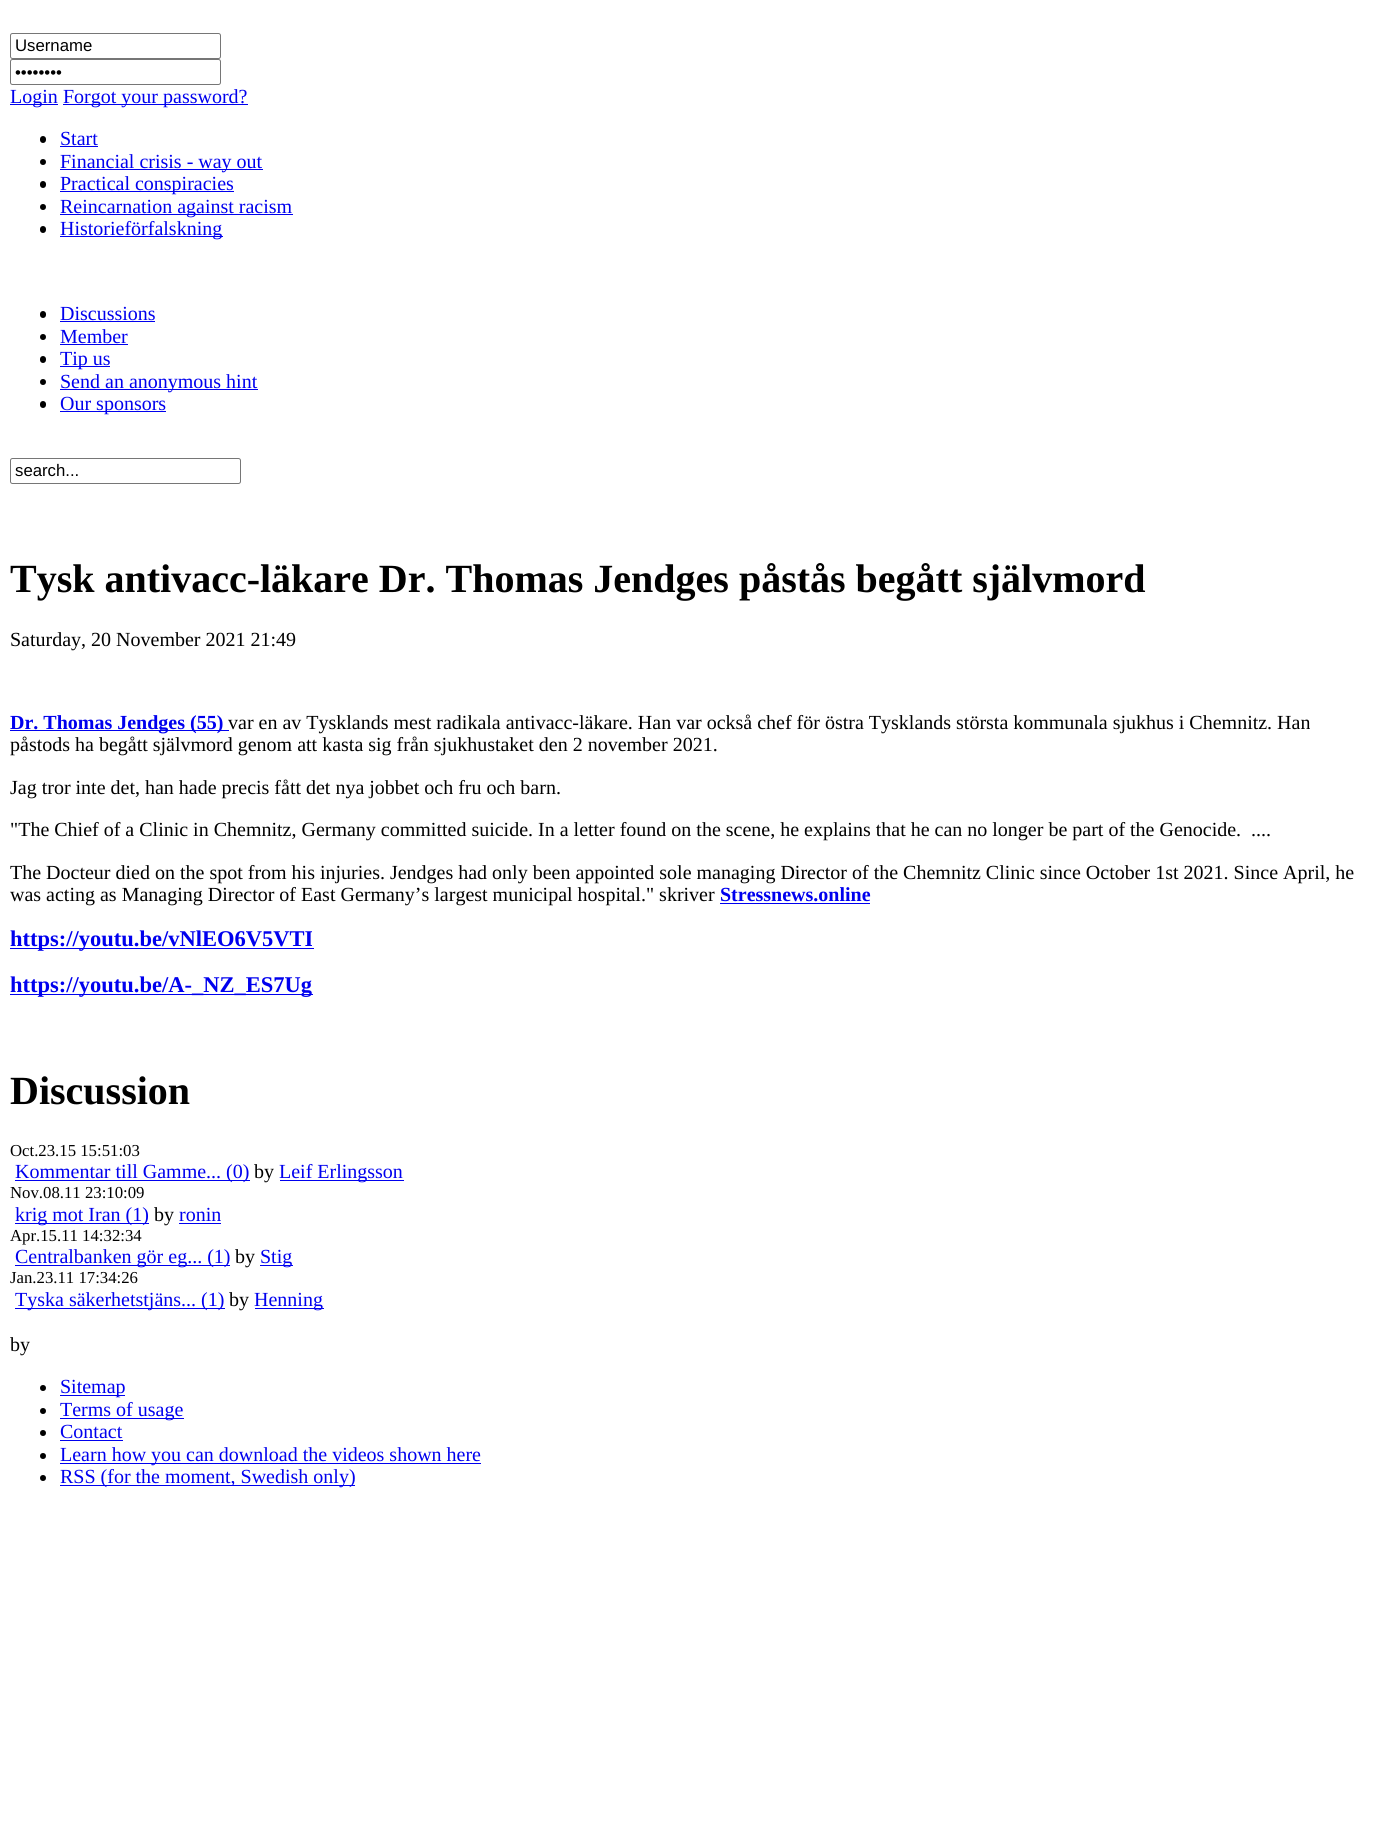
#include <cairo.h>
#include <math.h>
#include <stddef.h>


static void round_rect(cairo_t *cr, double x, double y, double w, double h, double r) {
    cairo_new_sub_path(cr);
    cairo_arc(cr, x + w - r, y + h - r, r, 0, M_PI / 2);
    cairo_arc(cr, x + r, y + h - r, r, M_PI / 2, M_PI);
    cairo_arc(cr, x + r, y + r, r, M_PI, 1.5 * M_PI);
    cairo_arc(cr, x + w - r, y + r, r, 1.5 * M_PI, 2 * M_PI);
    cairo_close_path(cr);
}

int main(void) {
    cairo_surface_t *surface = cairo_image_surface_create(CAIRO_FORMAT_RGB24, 1384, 1843);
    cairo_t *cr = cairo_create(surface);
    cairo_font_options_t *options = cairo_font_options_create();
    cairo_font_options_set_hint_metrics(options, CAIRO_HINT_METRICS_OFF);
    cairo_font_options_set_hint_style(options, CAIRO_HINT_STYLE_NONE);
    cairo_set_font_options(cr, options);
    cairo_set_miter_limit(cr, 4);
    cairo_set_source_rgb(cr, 1, 1, 1);
    cairo_paint(cr);
    round_rect(cr, 10.5, 33.5, 210, 25, 2);
    cairo_set_source_rgb(cr, 0.463, 0.463, 0.463);
    cairo_set_line_width(cr, 1);
    cairo_stroke(cr);
    cairo_select_font_face(cr, "Liberation Sans", CAIRO_FONT_SLANT_NORMAL, CAIRO_FONT_WEIGHT_NORMAL);
    cairo_set_font_size(cr, 16.75);
    cairo_set_source_rgb(cr, 0, 0, 0);
    cairo_move_to(cr, 15, 51);
    cairo_show_text(cr, "Username");
    round_rect(cr, 10.5, 59.5, 210, 25, 2);
    cairo_set_source_rgb(cr, 0.463, 0.463, 0.463);
    cairo_stroke(cr);
    cairo_set_source_rgb(cr, 0, 0, 0);
    cairo_move_to(cr, 15, 78);
    cairo_show_text(cr, "••••••••");
    cairo_set_source_rgb(cr, 0, 0, 0.933);
    cairo_rectangle(cr, 10, 104, 48, 1);
    cairo_fill(cr);
    cairo_select_font_face(cr, "Liberation Serif", CAIRO_FONT_SLANT_NORMAL, CAIRO_FONT_WEIGHT_NORMAL);
    cairo_set_font_size(cr, 20);
    cairo_move_to(cr, 10, 103);
    cairo_show_text(cr, "Login");
    cairo_rectangle(cr, 63, 104, 185, 1);
    cairo_fill(cr);
    cairo_move_to(cr, 63, 103);
    cairo_show_text(cr, "Forgot your password?");
    cairo_set_source_rgb(cr, 0, 0, 0);
    round_rect(cr, 40, 136, 6, 7, 3);
    cairo_fill(cr);
    cairo_set_source_rgb(cr, 0, 0, 0.933);
    cairo_move_to(cr, 60, 145);
    cairo_show_text(cr, "Start");
    cairo_rectangle(cr, 60, 146, 38, 1);
    cairo_fill(cr);
    cairo_set_source_rgb(cr, 0, 0, 0);
    cairo_arc(cr, 43, 162, 3, 0, 2 * M_PI);
    cairo_fill(cr);
    cairo_set_source_rgb(cr, 0, 0, 0.933);
    cairo_rectangle(cr, 60, 169, 203, 1);
    cairo_fill(cr);
    cairo_move_to(cr, 60, 168);
    cairo_show_text(cr, "Financial crisis - way out");
    cairo_set_source_rgb(cr, 0, 0, 0);
    round_rect(cr, 40, 181, 6, 7, 3);
    cairo_fill(cr);
    cairo_set_source_rgb(cr, 0, 0, 0.933);
    cairo_rectangle(cr, 60, 191, 174, 1);
    cairo_fill(cr);
    cairo_move_to(cr, 60, 190);
    cairo_show_text(cr, "Practical conspiracies");
    cairo_set_source_rgb(cr, 0, 0, 0);
    cairo_new_path(cr);
    cairo_arc(cr, 43, 207, 3, 0, 2 * M_PI);
    cairo_fill(cr);
    cairo_set_source_rgb(cr, 0, 0, 0.933);
    cairo_rectangle(cr, 60, 214, 233, 1);
    cairo_fill(cr);
    cairo_move_to(cr, 60, 213);
    cairo_show_text(cr, "Reincarnation against racism");
    cairo_set_source_rgb(cr, 0, 0, 0);
    round_rect(cr, 40, 226, 6, 7, 3);
    cairo_fill(cr);
    cairo_set_source_rgb(cr, 0, 0, 0.933);
    cairo_rectangle(cr, 60, 236, 163, 1);
    cairo_fill(cr);
    cairo_move_to(cr, 60, 235);
    cairo_show_text(cr, "Historieförfalskning");
    cairo_set_source_rgb(cr, 0, 0, 0);
    round_rect(cr, 40, 311, 6, 7, 3);
    cairo_fill(cr);
    cairo_set_source_rgb(cr, 0, 0, 0.933);
    cairo_move_to(cr, 60, 320);
    cairo_show_text(cr, "Discussions");
    cairo_rectangle(cr, 60, 321, 95, 1);
    cairo_fill(cr);
    cairo_set_source_rgb(cr, 0, 0, 0);
    cairo_arc(cr, 43, 337, 3, 0, 2 * M_PI);
    cairo_fill(cr);
    cairo_set_source_rgb(cr, 0, 0, 0.933);
    cairo_move_to(cr, 60, 343);
    cairo_show_text(cr, "Member");
    cairo_rectangle(cr, 60, 344, 68, 1);
    cairo_fill(cr);
    cairo_set_source_rgb(cr, 0, 0, 0);
    round_rect(cr, 40, 356, 6, 7, 3);
    cairo_fill(cr);
    cairo_set_source_rgb(cr, 0, 0, 0.933);
    cairo_rectangle(cr, 60, 366, 50, 1);
    cairo_fill(cr);
    cairo_move_to(cr, 60, 365);
    cairo_show_text(cr, "Tip us");
    cairo_set_source_rgb(cr, 0, 0, 0);
    cairo_new_path(cr);
    cairo_arc(cr, 43, 382, 3, 0, 2 * M_PI);
    cairo_fill(cr);
    cairo_set_source_rgb(cr, 0, 0, 0.933);
    cairo_rectangle(cr, 60, 389, 198, 1);
    cairo_fill(cr);
    cairo_move_to(cr, 60, 388);
    cairo_show_text(cr, "Send an anonymous hint");
    cairo_set_source_rgb(cr, 0, 0, 0);
    round_rect(cr, 40, 401, 6, 7, 3);
    cairo_fill(cr);
    cairo_set_source_rgb(cr, 0, 0, 0.933);
    cairo_rectangle(cr, 60, 411, 106, 1);
    cairo_fill(cr);
    cairo_move_to(cr, 60, 410);
    cairo_show_text(cr, "Our sponsors");
    round_rect(cr, 10.5, 458.5, 230, 25, 2);
    cairo_set_source_rgb(cr, 0.463, 0.463, 0.463);
    cairo_stroke(cr);
    cairo_select_font_face(cr, "Liberation Sans", CAIRO_FONT_SLANT_NORMAL, CAIRO_FONT_WEIGHT_NORMAL);
    cairo_set_font_size(cr, 16.75);
    cairo_set_source_rgb(cr, 0, 0, 0);
    cairo_move_to(cr, 15, 476);
    cairo_show_text(cr, "search...");
    cairo_select_font_face(cr, "Liberation Serif", CAIRO_FONT_SLANT_NORMAL, CAIRO_FONT_WEIGHT_BOLD);
    cairo_set_font_size(cr, 40);
    cairo_move_to(cr, 10, 592);
    cairo_show_text(cr, "Tysk antivacc-läkare Dr. Thomas Jendges påstås begått självmord");
    cairo_select_font_face(cr, "Liberation Serif", CAIRO_FONT_SLANT_NORMAL, CAIRO_FONT_WEIGHT_NORMAL);
    cairo_set_font_size(cr, 20);
    cairo_move_to(cr, 10, 646);
    cairo_show_text(cr, "Saturday, 20 November 2021 21:49");
    cairo_set_source_rgb(cr, 0, 0, 0.933);
    cairo_rectangle(cr, 10, 730, 219, 1);
    cairo_fill(cr);
    cairo_select_font_face(cr, "Liberation Serif", CAIRO_FONT_SLANT_NORMAL, CAIRO_FONT_WEIGHT_BOLD);
    cairo_move_to(cr, 10, 729);
    cairo_show_text(cr, "Dr. Thomas Jendges (55)");
    cairo_select_font_face(cr, "Liberation Serif", CAIRO_FONT_SLANT_NORMAL, CAIRO_FONT_WEIGHT_NORMAL);
    cairo_set_source_rgb(cr, 0, 0, 0);
    cairo_move_to(cr, 228, 729);
    cairo_show_text(cr, "var en av Tysklands mest radikala antivacc-läkare. Han var också chef för östra Tysklands största kommunala sjukhus i Chemnitz. Han");
    cairo_move_to(cr, 10, 751);
    cairo_show_text(cr, "påstods ha begått självmord genom att kasta sig från sjukhustaket den 2 november 2021.");
    cairo_move_to(cr, 10, 794);
    cairo_show_text(cr, "Jag tror inte det, han hade precis fått det nya jobbet och fru och barn.");
    cairo_move_to(cr, 10, 836);
    cairo_show_text(cr, "\"The Chief of a Clinic in Chemnitz, Germany committed suicide. In a letter found on the scene, he explains that he can no longer be part of the Genocide.  ....");
    cairo_move_to(cr, 10, 879);
    cairo_show_text(cr, "The Docteur died on the spot from his injuries. Jendges had only been appointed sole managing Director of the Chemnitz Clinic since October 1st 2021. Since April, he");
    cairo_move_to(cr, 10, 901);
    cairo_show_text(cr, "was acting as Managing Director of East Germany’s largest municipal hospital.\" skriver");
    cairo_select_font_face(cr, "Liberation Serif", CAIRO_FONT_SLANT_NORMAL, CAIRO_FONT_WEIGHT_BOLD);
    cairo_set_source_rgb(cr, 0, 0, 0.933);
    cairo_move_to(cr, 720, 901);
    cairo_show_text(cr, "Stressnews.online");
    cairo_rectangle(cr, 720, 903, 150, 1);
    cairo_fill(cr);
    cairo_rectangle(cr, 10, 948, 304, 1);
    cairo_fill(cr);
    cairo_set_font_size(cr, 22.5);
    cairo_move_to(cr, 10, 946);
    cairo_show_text(cr, "https://youtu.be/vNlEO6V5VTI");
    cairo_rectangle(cr, 10, 994, 303, 1);
    cairo_fill(cr);
    cairo_move_to(cr, 10, 992);
    cairo_show_text(cr, "https://youtu.be/A-_NZ_ES7Ug");
    cairo_set_font_size(cr, 40);
    cairo_set_source_rgb(cr, 0, 0, 0);
    cairo_move_to(cr, 10, 1104);
    cairo_show_text(cr, "Discussion");
    cairo_select_font_face(cr, "Liberation Serif", CAIRO_FONT_SLANT_NORMAL, CAIRO_FONT_WEIGHT_NORMAL);
    cairo_set_font_size(cr, 16.75);
    cairo_move_to(cr, 10, 1156);
    cairo_show_text(cr, "Oct.23.15 15:51:03");
    cairo_set_source_rgb(cr, 0, 0, 0.933);
    cairo_rectangle(cr, 15, 1180, 235, 1);
    cairo_fill(cr);
    cairo_set_font_size(cr, 20);
    cairo_move_to(cr, 15, 1178);
    cairo_show_text(cr, "Kommentar till Gamme... (0)");
    cairo_set_source_rgb(cr, 0, 0, 0);
    cairo_move_to(cr, 254, 1178);
    cairo_show_text(cr, "by");
    cairo_set_source_rgb(cr, 0, 0, 0.933);
    cairo_rectangle(cr, 280, 1180, 124, 1);
    cairo_fill(cr);
    cairo_move_to(cr, 279, 1178);
    cairo_show_text(cr, "Leif Erlingsson");
    cairo_set_font_size(cr, 16.75);
    cairo_set_source_rgb(cr, 0, 0, 0);
    cairo_move_to(cr, 10, 1198);
    cairo_show_text(cr, "Nov.08.11 23:10:09");
    cairo_set_source_rgb(cr, 0, 0, 0.933);
    cairo_rectangle(cr, 15, 1223, 134, 1);
    cairo_fill(cr);
    cairo_set_font_size(cr, 20);
    cairo_move_to(cr, 15, 1221);
    cairo_show_text(cr, "krig mot Iran (1)");
    cairo_set_source_rgb(cr, 0, 0, 0);
    cairo_move_to(cr, 154, 1221);
    cairo_show_text(cr, "by");
    cairo_set_source_rgb(cr, 0, 0, 0.933);
    cairo_move_to(cr, 179, 1221);
    cairo_show_text(cr, "ronin");
    cairo_rectangle(cr, 179, 1223, 42, 1);
    cairo_fill(cr);
    cairo_set_font_size(cr, 16.75);
    cairo_set_source_rgb(cr, 0, 0, 0);
    cairo_move_to(cr, 10, 1241);
    cairo_show_text(cr, "Apr.15.11 14:32:34");
    cairo_set_source_rgb(cr, 0, 0, 0.933);
    cairo_rectangle(cr, 15, 1265, 215, 1);
    cairo_fill(cr);
    cairo_set_font_size(cr, 20);
    cairo_move_to(cr, 15, 1263);
    cairo_show_text(cr, "Centralbanken gör eg... (1)");
    cairo_set_source_rgb(cr, 0, 0, 0);
    cairo_move_to(cr, 235, 1263);
    cairo_show_text(cr, "by");
    cairo_set_source_rgb(cr, 0, 0, 0.933);
    cairo_rectangle(cr, 260, 1265, 33, 1);
    cairo_fill(cr);
    cairo_move_to(cr, 260, 1263);
    cairo_show_text(cr, "Stig");
    cairo_set_font_size(cr, 16.75);
    cairo_set_source_rgb(cr, 0, 0, 0);
    cairo_move_to(cr, 10, 1283);
    cairo_show_text(cr, "Jan.23.11 17:34:26");
    cairo_set_source_rgb(cr, 0, 0, 0.933);
    cairo_rectangle(cr, 15, 1308, 210, 1);
    cairo_fill(cr);
    cairo_set_font_size(cr, 20);
    cairo_move_to(cr, 15, 1306);
    cairo_show_text(cr, "Tyska säkerhetstjäns... (1)");
    cairo_set_source_rgb(cr, 0, 0, 0);
    cairo_move_to(cr, 229, 1306);
    cairo_show_text(cr, "by");
    cairo_set_source_rgb(cr, 0, 0, 0.933);
    cairo_rectangle(cr, 255, 1308, 69, 1);
    cairo_fill(cr);
    cairo_move_to(cr, 254, 1306);
    cairo_show_text(cr, "Henning");
    cairo_set_source_rgb(cr, 0, 0, 0);
    cairo_move_to(cr, 10, 1351);
    cairo_show_text(cr, "by");
    cairo_new_path(cr);
    cairo_arc(cr, 43, 1388, 3, 0, 2 * M_PI);
    cairo_fill(cr);
    cairo_set_source_rgb(cr, 0, 0, 0.933);
    cairo_rectangle(cr, 60, 1395, 65, 1);
    cairo_fill(cr);
    cairo_move_to(cr, 60, 1393);
    cairo_show_text(cr, "Sitemap");
    cairo_set_source_rgb(cr, 0, 0, 0);
    cairo_new_path(cr);
    cairo_arc(cr, 43, 1411, 3, 0, 2 * M_PI);
    cairo_fill(cr);
    cairo_set_source_rgb(cr, 0, 0, 0.933);
    cairo_rectangle(cr, 60, 1418, 124, 1);
    cairo_fill(cr);
    cairo_move_to(cr, 60, 1416);
    cairo_show_text(cr, "Terms of usage");
    cairo_set_source_rgb(cr, 0, 0, 0);
    cairo_new_path(cr);
    cairo_arc(cr, 43, 1433, 3, 0, 2 * M_PI);
    cairo_fill(cr);
    cairo_set_source_rgb(cr, 0, 0, 0.933);
    cairo_move_to(cr, 60, 1438);
    cairo_show_text(cr, "Contact");
    cairo_rectangle(cr, 60, 1440, 63, 1);
    cairo_fill(cr);
    cairo_set_source_rgb(cr, 0, 0, 0);
    cairo_arc(cr, 43, 1456, 3, 0, 2 * M_PI);
    cairo_fill(cr);
    cairo_set_source_rgb(cr, 0, 0, 0.933);
    cairo_rectangle(cr, 60, 1463, 421, 1);
    cairo_fill(cr);
    cairo_move_to(cr, 60, 1461);
    cairo_show_text(cr, "Learn how you can download the videos shown here");
    cairo_set_source_rgb(cr, 0, 0, 0);
    cairo_new_path(cr);
    cairo_arc(cr, 43, 1478, 3, 0, 2 * M_PI);
    cairo_fill(cr);
    cairo_set_source_rgb(cr, 0, 0, 0.933);
    cairo_rectangle(cr, 60, 1485, 295, 1);
    cairo_fill(cr);
    cairo_move_to(cr, 60, 1483);
    cairo_show_text(cr, "RSS (for the moment, Swedish only)");
    cairo_surface_write_to_png(surface, "page.png");
    cairo_font_options_destroy(options);
    cairo_destroy(cr);
    cairo_surface_destroy(surface);
    return 0;
}
